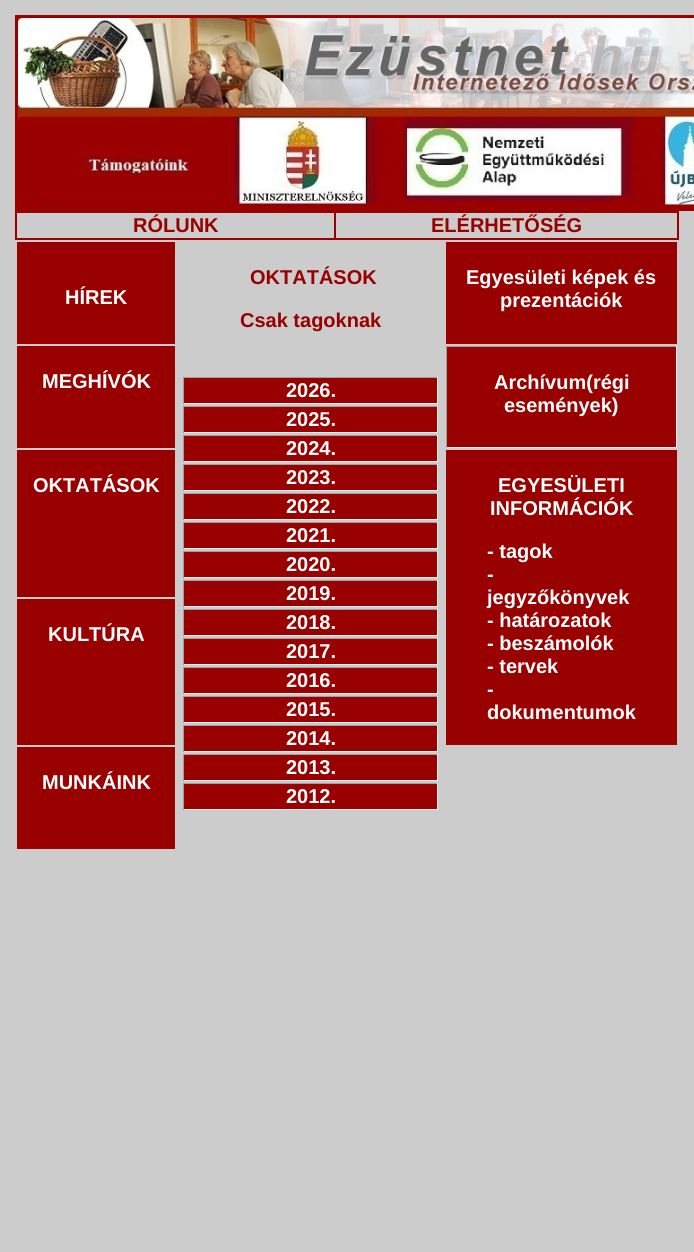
#include <cairo.h>
#include <math.h>
#include <stddef.h>


static void picture(cairo_t *cr, const char *path, double x, double y, double w, double h) {
    cairo_surface_t *image = cairo_image_surface_create_from_png(path);
    cairo_save(cr);
    cairo_set_source_surface(cr, image, x, y);
    cairo_rectangle(cr, x, y, w, h);
    cairo_fill(cr);
    cairo_restore(cr);
    cairo_surface_destroy(image);
}

int main(void) {
    cairo_surface_t *surface = cairo_image_surface_create(CAIRO_FORMAT_RGB24, 694, 1252);
    cairo_t *cr = cairo_create(surface);
    cairo_font_options_t *options = cairo_font_options_create();
    cairo_font_options_set_hint_metrics(options, CAIRO_HINT_METRICS_OFF);
    cairo_font_options_set_hint_style(options, CAIRO_HINT_STYLE_NONE);
    cairo_set_font_options(cr, options);
    cairo_set_miter_limit(cr, 4);
    cairo_set_source_rgb(cr, 0.8, 0.8, 0.8);
    cairo_paint(cr);
    cairo_set_source_rgb(cr, 0.6, 0, 0);
    cairo_rectangle(cr, 15, 15, 679, 196);
    cairo_fill(cr);
    picture(cr, "img1.png", 18, 18, 676, 190);
    cairo_rectangle(cr, 15, 211, 664, 29);
    cairo_fill(cr);
    cairo_set_source_rgb(cr, 0.8, 0.8, 0.8);
    cairo_rectangle(cr, 17, 213, 317, 25);
    cairo_fill(cr);
    cairo_select_font_face(cr, "Liberation Sans", CAIRO_FONT_SLANT_NORMAL, CAIRO_FONT_WEIGHT_BOLD);
    cairo_set_font_size(cr, 20);
    cairo_set_source_rgb(cr, 0.6, 0, 0);
    cairo_move_to(cr, 133, 232);
    cairo_show_text(cr, "RÓLUNK");
    cairo_set_source_rgb(cr, 0.8, 0.8, 0.8);
    cairo_rectangle(cr, 336, 213, 341, 25);
    cairo_fill(cr);
    cairo_set_source_rgb(cr, 0.6, 0, 0);
    cairo_move_to(cr, 431, 232);
    cairo_show_text(cr, "ELÉRHETŐSÉG");
    cairo_rectangle(cr, 17, 242, 158, 102);
    cairo_fill(cr);
    cairo_set_source_rgb(cr, 1, 1, 1);
    cairo_move_to(cr, 65, 304);
    cairo_show_text(cr, "HÍREK");
    cairo_set_source_rgb(cr, 0.6, 0, 0);
    cairo_move_to(cr, 250, 284);
    cairo_show_text(cr, "OKTATÁSOK");
    cairo_move_to(cr, 240, 327);
    cairo_show_text(cr, "Csak tagoknak");
    cairo_rectangle(cr, 184, 378, 253, 25);
    cairo_fill(cr);
    cairo_set_source_rgb(cr, 0.624, 0.624, 0.624);
    cairo_rectangle(cr, 183, 377, 255, 1);
    cairo_fill(cr);
    cairo_set_source_rgb(cr, 0.933, 0.933, 0.933);
    cairo_rectangle(cr, 437, 377, 1, 27);
    cairo_fill(cr);
    cairo_rectangle(cr, 183, 403, 255, 1);
    cairo_fill(cr);
    cairo_set_source_rgb(cr, 0.624, 0.624, 0.624);
    cairo_rectangle(cr, 183, 377, 1, 27);
    cairo_fill(cr);
    cairo_set_source_rgb(cr, 1, 1, 1);
    cairo_move_to(cr, 286, 397);
    cairo_show_text(cr, "2026.");
    cairo_set_source_rgb(cr, 0.6, 0, 0);
    cairo_rectangle(cr, 184, 407, 253, 25);
    cairo_fill(cr);
    cairo_set_source_rgb(cr, 0.624, 0.624, 0.624);
    cairo_rectangle(cr, 183, 406, 255, 1);
    cairo_fill(cr);
    cairo_set_source_rgb(cr, 0.933, 0.933, 0.933);
    cairo_rectangle(cr, 437, 406, 1, 27);
    cairo_fill(cr);
    cairo_rectangle(cr, 183, 432, 255, 1);
    cairo_fill(cr);
    cairo_set_source_rgb(cr, 0.624, 0.624, 0.624);
    cairo_rectangle(cr, 183, 406, 1, 27);
    cairo_fill(cr);
    cairo_set_source_rgb(cr, 1, 1, 1);
    cairo_move_to(cr, 286, 426);
    cairo_show_text(cr, "2025.");
    cairo_set_source_rgb(cr, 0.6, 0, 0);
    cairo_rectangle(cr, 184, 436, 253, 25);
    cairo_fill(cr);
    cairo_set_source_rgb(cr, 0.624, 0.624, 0.624);
    cairo_rectangle(cr, 183, 435, 255, 1);
    cairo_fill(cr);
    cairo_set_source_rgb(cr, 0.933, 0.933, 0.933);
    cairo_rectangle(cr, 437, 435, 1, 27);
    cairo_fill(cr);
    cairo_rectangle(cr, 183, 461, 255, 1);
    cairo_fill(cr);
    cairo_set_source_rgb(cr, 0.624, 0.624, 0.624);
    cairo_rectangle(cr, 183, 435, 1, 27);
    cairo_fill(cr);
    cairo_set_source_rgb(cr, 1, 1, 1);
    cairo_move_to(cr, 286, 455);
    cairo_show_text(cr, "2024.");
    cairo_set_source_rgb(cr, 0.6, 0, 0);
    cairo_rectangle(cr, 184, 465, 253, 25);
    cairo_fill(cr);
    cairo_set_source_rgb(cr, 0.624, 0.624, 0.624);
    cairo_rectangle(cr, 183, 464, 255, 1);
    cairo_fill(cr);
    cairo_set_source_rgb(cr, 0.933, 0.933, 0.933);
    cairo_rectangle(cr, 437, 464, 1, 27);
    cairo_fill(cr);
    cairo_rectangle(cr, 183, 490, 255, 1);
    cairo_fill(cr);
    cairo_set_source_rgb(cr, 0.624, 0.624, 0.624);
    cairo_rectangle(cr, 183, 464, 1, 27);
    cairo_fill(cr);
    cairo_set_source_rgb(cr, 1, 1, 1);
    cairo_move_to(cr, 286, 484);
    cairo_show_text(cr, "2023.");
    cairo_set_source_rgb(cr, 0.6, 0, 0);
    cairo_rectangle(cr, 184, 494, 253, 25);
    cairo_fill(cr);
    cairo_set_source_rgb(cr, 0.624, 0.624, 0.624);
    cairo_rectangle(cr, 183, 493, 255, 1);
    cairo_fill(cr);
    cairo_set_source_rgb(cr, 0.933, 0.933, 0.933);
    cairo_rectangle(cr, 437, 493, 1, 27);
    cairo_fill(cr);
    cairo_rectangle(cr, 183, 519, 255, 1);
    cairo_fill(cr);
    cairo_set_source_rgb(cr, 0.624, 0.624, 0.624);
    cairo_rectangle(cr, 183, 493, 1, 27);
    cairo_fill(cr);
    cairo_set_source_rgb(cr, 1, 1, 1);
    cairo_move_to(cr, 286, 513);
    cairo_show_text(cr, "2022.");
    cairo_set_source_rgb(cr, 0.6, 0, 0);
    cairo_rectangle(cr, 184, 523, 253, 25);
    cairo_fill(cr);
    cairo_set_source_rgb(cr, 0.624, 0.624, 0.624);
    cairo_rectangle(cr, 183, 522, 255, 1);
    cairo_fill(cr);
    cairo_set_source_rgb(cr, 0.933, 0.933, 0.933);
    cairo_rectangle(cr, 437, 522, 1, 27);
    cairo_fill(cr);
    cairo_rectangle(cr, 183, 548, 255, 1);
    cairo_fill(cr);
    cairo_set_source_rgb(cr, 0.624, 0.624, 0.624);
    cairo_rectangle(cr, 183, 522, 1, 27);
    cairo_fill(cr);
    cairo_set_source_rgb(cr, 1, 1, 1);
    cairo_move_to(cr, 286, 542);
    cairo_show_text(cr, "2021.");
    cairo_set_source_rgb(cr, 0.6, 0, 0);
    cairo_rectangle(cr, 184, 552, 253, 25);
    cairo_fill(cr);
    cairo_set_source_rgb(cr, 0.624, 0.624, 0.624);
    cairo_rectangle(cr, 183, 551, 255, 1);
    cairo_fill(cr);
    cairo_set_source_rgb(cr, 0.933, 0.933, 0.933);
    cairo_rectangle(cr, 437, 551, 1, 27);
    cairo_fill(cr);
    cairo_rectangle(cr, 183, 577, 255, 1);
    cairo_fill(cr);
    cairo_set_source_rgb(cr, 0.624, 0.624, 0.624);
    cairo_rectangle(cr, 183, 551, 1, 27);
    cairo_fill(cr);
    cairo_set_source_rgb(cr, 1, 1, 1);
    cairo_move_to(cr, 286, 571);
    cairo_show_text(cr, "2020.");
    cairo_set_source_rgb(cr, 0.6, 0, 0);
    cairo_rectangle(cr, 184, 581, 253, 25);
    cairo_fill(cr);
    cairo_set_source_rgb(cr, 0.624, 0.624, 0.624);
    cairo_rectangle(cr, 183, 580, 255, 1);
    cairo_fill(cr);
    cairo_set_source_rgb(cr, 0.933, 0.933, 0.933);
    cairo_rectangle(cr, 437, 580, 1, 27);
    cairo_fill(cr);
    cairo_rectangle(cr, 183, 606, 255, 1);
    cairo_fill(cr);
    cairo_set_source_rgb(cr, 0.624, 0.624, 0.624);
    cairo_rectangle(cr, 183, 580, 1, 27);
    cairo_fill(cr);
    cairo_set_source_rgb(cr, 1, 1, 1);
    cairo_move_to(cr, 286, 600);
    cairo_show_text(cr, "2019.");
    cairo_set_source_rgb(cr, 0.6, 0, 0);
    cairo_rectangle(cr, 184, 610, 253, 25);
    cairo_fill(cr);
    cairo_set_source_rgb(cr, 0.624, 0.624, 0.624);
    cairo_rectangle(cr, 183, 609, 255, 1);
    cairo_fill(cr);
    cairo_set_source_rgb(cr, 0.933, 0.933, 0.933);
    cairo_rectangle(cr, 437, 609, 1, 27);
    cairo_fill(cr);
    cairo_rectangle(cr, 183, 635, 255, 1);
    cairo_fill(cr);
    cairo_set_source_rgb(cr, 0.624, 0.624, 0.624);
    cairo_rectangle(cr, 183, 609, 1, 27);
    cairo_fill(cr);
    cairo_set_source_rgb(cr, 1, 1, 1);
    cairo_move_to(cr, 286, 629);
    cairo_show_text(cr, "2018.");
    cairo_set_source_rgb(cr, 0.6, 0, 0);
    cairo_rectangle(cr, 184, 639, 253, 25);
    cairo_fill(cr);
    cairo_set_source_rgb(cr, 0.624, 0.624, 0.624);
    cairo_rectangle(cr, 183, 638, 255, 1);
    cairo_fill(cr);
    cairo_set_source_rgb(cr, 0.933, 0.933, 0.933);
    cairo_rectangle(cr, 437, 638, 1, 27);
    cairo_fill(cr);
    cairo_rectangle(cr, 183, 664, 255, 1);
    cairo_fill(cr);
    cairo_set_source_rgb(cr, 0.624, 0.624, 0.624);
    cairo_rectangle(cr, 183, 638, 1, 27);
    cairo_fill(cr);
    cairo_set_source_rgb(cr, 1, 1, 1);
    cairo_move_to(cr, 286, 658);
    cairo_show_text(cr, "2017.");
    cairo_set_source_rgb(cr, 0.6, 0, 0);
    cairo_rectangle(cr, 184, 668, 253, 25);
    cairo_fill(cr);
    cairo_set_source_rgb(cr, 0.624, 0.624, 0.624);
    cairo_rectangle(cr, 183, 667, 255, 1);
    cairo_fill(cr);
    cairo_set_source_rgb(cr, 0.933, 0.933, 0.933);
    cairo_rectangle(cr, 437, 667, 1, 27);
    cairo_fill(cr);
    cairo_rectangle(cr, 183, 693, 255, 1);
    cairo_fill(cr);
    cairo_set_source_rgb(cr, 0.624, 0.624, 0.624);
    cairo_rectangle(cr, 183, 667, 1, 27);
    cairo_fill(cr);
    cairo_set_source_rgb(cr, 1, 1, 1);
    cairo_move_to(cr, 286, 687);
    cairo_show_text(cr, "2016.");
    cairo_set_source_rgb(cr, 0.6, 0, 0);
    cairo_rectangle(cr, 184, 697, 253, 25);
    cairo_fill(cr);
    cairo_set_source_rgb(cr, 0.624, 0.624, 0.624);
    cairo_rectangle(cr, 183, 696, 255, 1);
    cairo_fill(cr);
    cairo_set_source_rgb(cr, 0.933, 0.933, 0.933);
    cairo_rectangle(cr, 437, 696, 1, 27);
    cairo_fill(cr);
    cairo_rectangle(cr, 183, 722, 255, 1);
    cairo_fill(cr);
    cairo_set_source_rgb(cr, 0.624, 0.624, 0.624);
    cairo_rectangle(cr, 183, 696, 1, 27);
    cairo_fill(cr);
    cairo_set_source_rgb(cr, 1, 1, 1);
    cairo_move_to(cr, 286, 716);
    cairo_show_text(cr, "2015.");
    cairo_set_source_rgb(cr, 0.6, 0, 0);
    cairo_rectangle(cr, 184, 726, 253, 25);
    cairo_fill(cr);
    cairo_set_source_rgb(cr, 0.624, 0.624, 0.624);
    cairo_rectangle(cr, 183, 725, 255, 1);
    cairo_fill(cr);
    cairo_set_source_rgb(cr, 0.933, 0.933, 0.933);
    cairo_rectangle(cr, 437, 725, 1, 27);
    cairo_fill(cr);
    cairo_rectangle(cr, 183, 751, 255, 1);
    cairo_fill(cr);
    cairo_set_source_rgb(cr, 0.624, 0.624, 0.624);
    cairo_rectangle(cr, 183, 725, 1, 27);
    cairo_fill(cr);
    cairo_set_source_rgb(cr, 1, 1, 1);
    cairo_move_to(cr, 286, 745);
    cairo_show_text(cr, "2014.");
    cairo_set_source_rgb(cr, 0.6, 0, 0);
    cairo_rectangle(cr, 184, 755, 253, 25);
    cairo_fill(cr);
    cairo_set_source_rgb(cr, 0.624, 0.624, 0.624);
    cairo_rectangle(cr, 183, 754, 255, 1);
    cairo_fill(cr);
    cairo_set_source_rgb(cr, 0.933, 0.933, 0.933);
    cairo_rectangle(cr, 437, 754, 1, 27);
    cairo_fill(cr);
    cairo_rectangle(cr, 183, 780, 255, 1);
    cairo_fill(cr);
    cairo_set_source_rgb(cr, 0.624, 0.624, 0.624);
    cairo_rectangle(cr, 183, 754, 1, 27);
    cairo_fill(cr);
    cairo_set_source_rgb(cr, 1, 1, 1);
    cairo_move_to(cr, 286, 774);
    cairo_show_text(cr, "2013.");
    cairo_set_source_rgb(cr, 0.6, 0, 0);
    cairo_rectangle(cr, 184, 784, 253, 25);
    cairo_fill(cr);
    cairo_set_source_rgb(cr, 0.624, 0.624, 0.624);
    cairo_rectangle(cr, 183, 783, 255, 1);
    cairo_fill(cr);
    cairo_set_source_rgb(cr, 0.933, 0.933, 0.933);
    cairo_rectangle(cr, 437, 783, 1, 27);
    cairo_fill(cr);
    cairo_rectangle(cr, 183, 809, 255, 1);
    cairo_fill(cr);
    cairo_set_source_rgb(cr, 0.624, 0.624, 0.624);
    cairo_rectangle(cr, 183, 783, 1, 27);
    cairo_fill(cr);
    cairo_set_source_rgb(cr, 1, 1, 1);
    cairo_move_to(cr, 286, 803);
    cairo_show_text(cr, "2012.");
    cairo_set_source_rgb(cr, 0.6, 0, 0);
    cairo_rectangle(cr, 446, 242, 231, 102);
    cairo_fill(cr);
    cairo_set_source_rgb(cr, 1, 1, 1);
    cairo_move_to(cr, 466, 284);
    cairo_show_text(cr, "Egyesületi képek és");
    cairo_move_to(cr, 500, 307);
    cairo_show_text(cr, "prezentációk");
    cairo_set_source_rgb(cr, 0.6, 0, 0);
    cairo_rectangle(cr, 17, 346, 158, 102);
    cairo_fill(cr);
    cairo_set_source_rgb(cr, 1, 1, 1);
    cairo_move_to(cr, 42, 388);
    cairo_show_text(cr, "MEGHÍVÓK");
    cairo_set_source_rgb(cr, 0.6, 0, 0);
    cairo_rectangle(cr, 447, 347, 229, 100);
    cairo_fill(cr);
    cairo_set_source_rgb(cr, 0.624, 0.624, 0.624);
    cairo_rectangle(cr, 446, 346, 231, 1);
    cairo_fill(cr);
    cairo_set_source_rgb(cr, 0.933, 0.933, 0.933);
    cairo_rectangle(cr, 676, 346, 1, 102);
    cairo_fill(cr);
    cairo_rectangle(cr, 446, 447, 231, 1);
    cairo_fill(cr);
    cairo_set_source_rgb(cr, 0.624, 0.624, 0.624);
    cairo_rectangle(cr, 446, 346, 1, 102);
    cairo_fill(cr);
    cairo_set_source_rgb(cr, 1, 1, 1);
    cairo_move_to(cr, 494, 389);
    cairo_show_text(cr, "Archívum(régi");
    cairo_move_to(cr, 504, 412);
    cairo_show_text(cr, "események)");
    cairo_set_source_rgb(cr, 0.6, 0, 0);
    cairo_rectangle(cr, 17, 450, 158, 147);
    cairo_fill(cr);
    cairo_set_source_rgb(cr, 1, 1, 1);
    cairo_move_to(cr, 33, 492);
    cairo_show_text(cr, "OKTATÁSOK");
    cairo_set_source_rgb(cr, 0.6, 0, 0);
    cairo_rectangle(cr, 446, 450, 231, 295);
    cairo_fill(cr);
    cairo_set_source_rgb(cr, 1, 1, 1);
    cairo_move_to(cr, 498, 492);
    cairo_show_text(cr, "EGYESÜLETI");
    cairo_move_to(cr, 490, 515);
    cairo_show_text(cr, "INFORMÁCIÓK");
    cairo_move_to(cr, 487, 558);
    cairo_show_text(cr, "- tagok");
    cairo_move_to(cr, 487, 581);
    cairo_show_text(cr, "-");
    cairo_move_to(cr, 487, 604);
    cairo_show_text(cr, "jegyzőkönyvek");
    cairo_move_to(cr, 487, 627);
    cairo_show_text(cr, "- határozatok");
    cairo_move_to(cr, 487, 650);
    cairo_show_text(cr, "- beszámolók");
    cairo_move_to(cr, 487, 673);
    cairo_show_text(cr, "- tervek");
    cairo_move_to(cr, 487, 696);
    cairo_show_text(cr, "-");
    cairo_move_to(cr, 487, 719);
    cairo_show_text(cr, "dokumentumok");
    cairo_set_source_rgb(cr, 0.6, 0, 0);
    cairo_rectangle(cr, 17, 599, 158, 146);
    cairo_fill(cr);
    cairo_set_source_rgb(cr, 1, 1, 1);
    cairo_move_to(cr, 48, 641);
    cairo_show_text(cr, "KULTÚRA");
    cairo_set_source_rgb(cr, 0.6, 0, 0);
    cairo_rectangle(cr, 17, 747, 158, 102);
    cairo_fill(cr);
    cairo_set_source_rgb(cr, 1, 1, 1);
    cairo_move_to(cr, 42, 789);
    cairo_show_text(cr, "MUNKÁINK");
    cairo_surface_write_to_png(surface, "page.png");
    cairo_font_options_destroy(options);
    cairo_destroy(cr);
    cairo_surface_destroy(surface);
    return 0;
}
